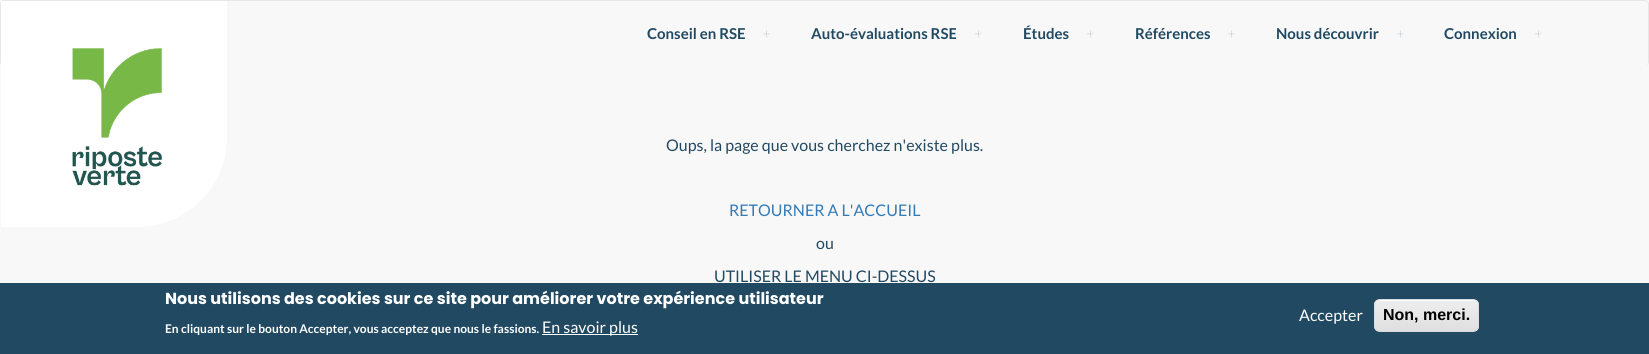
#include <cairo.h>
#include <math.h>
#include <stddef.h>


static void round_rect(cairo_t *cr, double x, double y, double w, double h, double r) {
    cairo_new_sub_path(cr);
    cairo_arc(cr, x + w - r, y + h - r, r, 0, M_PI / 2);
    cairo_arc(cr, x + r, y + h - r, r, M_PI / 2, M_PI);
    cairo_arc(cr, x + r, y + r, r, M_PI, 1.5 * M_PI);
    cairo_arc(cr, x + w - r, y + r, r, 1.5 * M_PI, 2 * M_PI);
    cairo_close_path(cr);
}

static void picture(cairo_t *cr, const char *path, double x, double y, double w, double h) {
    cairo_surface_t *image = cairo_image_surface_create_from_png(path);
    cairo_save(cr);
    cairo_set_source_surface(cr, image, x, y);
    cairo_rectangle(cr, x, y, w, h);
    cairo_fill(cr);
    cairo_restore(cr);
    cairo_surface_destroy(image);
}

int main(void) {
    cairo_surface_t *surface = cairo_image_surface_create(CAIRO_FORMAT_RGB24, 1649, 354);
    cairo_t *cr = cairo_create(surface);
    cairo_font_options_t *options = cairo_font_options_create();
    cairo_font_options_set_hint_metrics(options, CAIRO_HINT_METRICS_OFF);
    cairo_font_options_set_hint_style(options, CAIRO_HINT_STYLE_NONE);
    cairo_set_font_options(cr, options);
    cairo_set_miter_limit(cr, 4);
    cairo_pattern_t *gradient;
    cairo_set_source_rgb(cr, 0.969, 0.969, 0.969);
    cairo_paint(cr);
    cairo_set_source_rgb(cr, 0.906, 0.906, 0.906);
    cairo_set_fill_rule(cr, CAIRO_FILL_RULE_EVEN_ODD);
    cairo_new_path(cr);
    cairo_move_to(cr, 4, 0);
    cairo_line_to(cr, 1645, 0);
    cairo_curve_to(cr, 1647, 0, 1649, 2, 1649, 4);
    cairo_line_to(cr, 1649, 62);
    cairo_curve_to(cr, 1649, 64, 1647, 66, 1645, 66);
    cairo_line_to(cr, 4, 66);
    cairo_curve_to(cr, 2, 66, 0, 64, 0, 62);
    cairo_line_to(cr, 0, 4);
    cairo_curve_to(cr, 0, 2, 2, 0, 4, 0);
    cairo_close_path(cr);
    cairo_move_to(cr, 4, 1);
    cairo_line_to(cr, 1645, 1);
    cairo_curve_to(cr, 1647, 1, 1648, 2, 1648, 4);
    cairo_line_to(cr, 1648, 62);
    cairo_curve_to(cr, 1648, 64, 1647, 66, 1645, 66);
    cairo_line_to(cr, 4, 66);
    cairo_curve_to(cr, 2, 66, 1, 64, 1, 62);
    cairo_line_to(cr, 1, 4);
    cairo_curve_to(cr, 1, 2, 2, 1, 4, 1);
    cairo_close_path(cr);
    cairo_fill(cr);
    cairo_set_source_rgb(cr, 1, 1, 1);
    cairo_new_path(cr);
    cairo_move_to(cr, 1, 1);
    cairo_line_to(cr, 227, 1);
    cairo_line_to(cr, 227, 137);
    cairo_curve_to(cr, 227, 186.5, 186.5, 227, 137, 227);
    cairo_line_to(cr, 1, 227);
    cairo_close_path(cr);
    cairo_fill(cr);
    picture(cr, "img1.png", 72, 48, 90, 138);
    cairo_select_font_face(cr, "Lato", CAIRO_FONT_SLANT_NORMAL, CAIRO_FONT_WEIGHT_BOLD);
    cairo_set_font_size(cr, 15);
    cairo_set_source_rgb(cr, 0.129, 0.286, 0.384);
    cairo_move_to(cr, 647, 39);
    cairo_show_text(cr, "Conseil en RSE");
    cairo_select_font_face(cr, "Lato Thin", CAIRO_FONT_SLANT_NORMAL, CAIRO_FONT_WEIGHT_NORMAL);
    cairo_move_to(cr, 762, 39);
    cairo_show_text(cr, "+");
    cairo_select_font_face(cr, "Lato", CAIRO_FONT_SLANT_NORMAL, CAIRO_FONT_WEIGHT_BOLD);
    cairo_move_to(cr, 811, 39);
    cairo_show_text(cr, "Auto-évaluations RSE");
    cairo_select_font_face(cr, "Lato Thin", CAIRO_FONT_SLANT_NORMAL, CAIRO_FONT_WEIGHT_NORMAL);
    cairo_move_to(cr, 974, 39);
    cairo_show_text(cr, "+");
    cairo_select_font_face(cr, "Lato", CAIRO_FONT_SLANT_NORMAL, CAIRO_FONT_WEIGHT_BOLD);
    cairo_move_to(cr, 1023, 39);
    cairo_show_text(cr, "Études");
    cairo_select_font_face(cr, "Lato Thin", CAIRO_FONT_SLANT_NORMAL, CAIRO_FONT_WEIGHT_NORMAL);
    cairo_move_to(cr, 1086, 39);
    cairo_show_text(cr, "+");
    cairo_select_font_face(cr, "Lato", CAIRO_FONT_SLANT_NORMAL, CAIRO_FONT_WEIGHT_BOLD);
    cairo_move_to(cr, 1135, 39);
    cairo_show_text(cr, "Références");
    cairo_select_font_face(cr, "Lato Thin", CAIRO_FONT_SLANT_NORMAL, CAIRO_FONT_WEIGHT_NORMAL);
    cairo_move_to(cr, 1227, 39);
    cairo_show_text(cr, "+");
    cairo_select_font_face(cr, "Lato", CAIRO_FONT_SLANT_NORMAL, CAIRO_FONT_WEIGHT_BOLD);
    cairo_move_to(cr, 1276, 39);
    cairo_show_text(cr, "Nous découvrir");
    cairo_select_font_face(cr, "Lato Thin", CAIRO_FONT_SLANT_NORMAL, CAIRO_FONT_WEIGHT_NORMAL);
    cairo_move_to(cr, 1396, 39);
    cairo_show_text(cr, "+");
    cairo_select_font_face(cr, "Lato", CAIRO_FONT_SLANT_NORMAL, CAIRO_FONT_WEIGHT_BOLD);
    cairo_move_to(cr, 1444, 39);
    cairo_show_text(cr, "Connexion");
    cairo_select_font_face(cr, "Lato Thin", CAIRO_FONT_SLANT_NORMAL, CAIRO_FONT_WEIGHT_NORMAL);
    cairo_move_to(cr, 1534, 39);
    cairo_show_text(cr, "+");
    cairo_select_font_face(cr, "Lato", CAIRO_FONT_SLANT_NORMAL, CAIRO_FONT_WEIGHT_NORMAL);
    cairo_set_font_size(cr, 16);
    cairo_move_to(cr, 666, 151);
    cairo_show_text(cr, "Oups, la page que vous cherchez n'existe plus.");
    cairo_set_source_rgb(cr, 0.2, 0.478, 0.718);
    cairo_move_to(cr, 729, 216);
    cairo_show_text(cr, "RETOURNER A L'ACCUEIL");
    cairo_set_source_rgb(cr, 0.129, 0.286, 0.384);
    cairo_move_to(cr, 816, 249);
    cairo_show_text(cr, "ou");
    cairo_move_to(cr, 714, 282);
    cairo_show_text(cr, "UTILISER LE MENU CI-DESSUS");
    cairo_rectangle(cr, 0, 283, 1649, 71);
    cairo_fill(cr);
    cairo_select_font_face(cr, "Poppins", CAIRO_FONT_SLANT_NORMAL, CAIRO_FONT_WEIGHT_BOLD);
    cairo_set_source_rgb(cr, 1, 1, 1);
    cairo_move_to(cr, 165, 304);
    cairo_show_text(cr, "Nous utilisons des cookies sur ce site pour améliorer votre expérience utilisateur");
    cairo_select_font_face(cr, "Lato", CAIRO_FONT_SLANT_NORMAL, CAIRO_FONT_WEIGHT_BOLD);
    cairo_set_font_size(cr, 12);
    cairo_move_to(cr, 165, 333);
    cairo_show_text(cr, "En cliquant sur le bouton Accepter, vous acceptez que nous le fassions.");
    cairo_rectangle(cr, 542, 334, 96, 1);
    cairo_fill(cr);
    cairo_select_font_face(cr, "Lato", CAIRO_FONT_SLANT_NORMAL, CAIRO_FONT_WEIGHT_NORMAL);
    cairo_set_font_size(cr, 16);
    cairo_move_to(cr, 542, 333);
    cairo_show_text(cr, "En savoir plus");
    cairo_move_to(cr, 1299, 321);
    cairo_show_text(cr, "Accepter");
    cairo_save(cr);
    cairo_set_fill_rule(cr, CAIRO_FILL_RULE_WINDING);
    round_rect(cr, 1374, 299, 105, 33, 6);
    cairo_clip(cr);
    gradient = cairo_pattern_create_linear(1427, 300, 1427, 331);
    cairo_pattern_add_color_stop_rgba(gradient, 0.05, 0.929, 0.929, 0.929, 1);
    cairo_pattern_add_color_stop_rgba(gradient, 1, 0.875, 0.875, 0.875, 1);
    cairo_set_source(cr, gradient);
    cairo_pattern_destroy(gradient);
    cairo_rectangle(cr, 1374, 300, 105, 31);
    cairo_fill(cr);
    cairo_restore(cr);
    cairo_set_fill_rule(cr, CAIRO_FILL_RULE_WINDING);
    cairo_new_path(cr);
    cairo_move_to(cr, 1380, 301);
    cairo_line_to(cr, 1473, 301);
    cairo_curve_to(cr, 1476, 301, 1478, 303, 1478, 306);
    cairo_curve_to(cr, 1478, 296, 1463, 300, 1458, 300);
    cairo_line_to(cr, 1396, 300);
    cairo_curve_to(cr, 1390, 300, 1375, 296, 1375, 306);
    cairo_curve_to(cr, 1375, 303, 1377, 301, 1380, 301);
    cairo_close_path(cr);
    cairo_fill(cr);
    round_rect(cr, 1374.5, 299.5, 104, 32, 5.5);
    cairo_set_source_rgb(cr, 0.863, 0.863, 0.863);
    cairo_set_line_width(cr, 1);
    cairo_stroke(cr);
    cairo_select_font_face(cr, "Liberation Sans", CAIRO_FONT_SLANT_NORMAL, CAIRO_FONT_WEIGHT_BOLD);
    cairo_set_source_rgb(cr, 0, 0, 0);
    cairo_move_to(cr, 1383, 320);
    cairo_show_text(cr, "Non, merci.");
    cairo_surface_write_to_png(surface, "page.png");
    cairo_font_options_destroy(options);
    cairo_destroy(cr);
    cairo_surface_destroy(surface);
    return 0;
}
